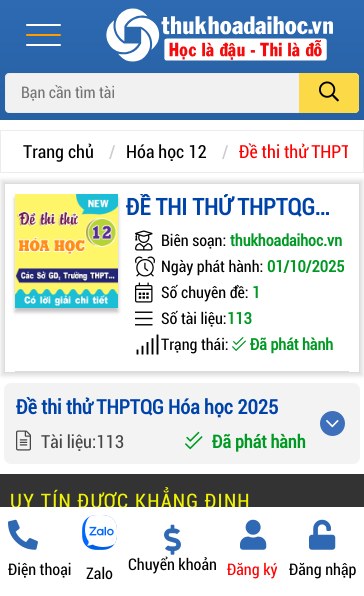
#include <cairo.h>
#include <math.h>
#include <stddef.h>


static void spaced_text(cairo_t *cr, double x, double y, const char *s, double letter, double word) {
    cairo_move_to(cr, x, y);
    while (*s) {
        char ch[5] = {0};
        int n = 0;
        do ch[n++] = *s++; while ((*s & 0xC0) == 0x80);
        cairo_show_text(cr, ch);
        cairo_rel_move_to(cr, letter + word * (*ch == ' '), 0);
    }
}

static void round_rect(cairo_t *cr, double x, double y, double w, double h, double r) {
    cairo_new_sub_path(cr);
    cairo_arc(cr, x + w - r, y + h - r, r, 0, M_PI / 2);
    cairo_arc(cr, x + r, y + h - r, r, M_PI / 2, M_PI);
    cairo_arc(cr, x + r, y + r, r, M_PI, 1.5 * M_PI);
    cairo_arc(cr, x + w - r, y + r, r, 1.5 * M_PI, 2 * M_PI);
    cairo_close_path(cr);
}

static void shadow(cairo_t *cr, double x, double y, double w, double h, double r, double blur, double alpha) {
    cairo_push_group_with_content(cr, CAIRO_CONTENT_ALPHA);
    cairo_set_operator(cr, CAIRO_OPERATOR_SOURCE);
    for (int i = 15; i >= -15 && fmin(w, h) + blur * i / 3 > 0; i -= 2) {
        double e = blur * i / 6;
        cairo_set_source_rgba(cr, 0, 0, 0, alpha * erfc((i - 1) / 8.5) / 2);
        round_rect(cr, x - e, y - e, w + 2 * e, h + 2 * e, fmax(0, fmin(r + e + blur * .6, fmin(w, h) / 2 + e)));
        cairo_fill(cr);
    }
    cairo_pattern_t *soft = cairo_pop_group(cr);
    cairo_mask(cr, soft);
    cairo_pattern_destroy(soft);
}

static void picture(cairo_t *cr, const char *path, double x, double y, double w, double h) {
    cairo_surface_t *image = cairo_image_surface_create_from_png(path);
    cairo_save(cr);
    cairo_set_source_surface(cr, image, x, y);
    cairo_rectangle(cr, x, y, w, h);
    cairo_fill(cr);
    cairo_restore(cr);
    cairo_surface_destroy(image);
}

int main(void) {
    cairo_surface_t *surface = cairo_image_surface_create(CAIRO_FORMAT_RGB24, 364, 596);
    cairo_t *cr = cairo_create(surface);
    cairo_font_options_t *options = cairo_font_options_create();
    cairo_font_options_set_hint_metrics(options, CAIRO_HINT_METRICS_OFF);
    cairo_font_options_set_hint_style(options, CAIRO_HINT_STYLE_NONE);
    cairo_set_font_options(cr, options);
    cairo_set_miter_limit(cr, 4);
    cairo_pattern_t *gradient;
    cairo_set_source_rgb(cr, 1, 1, 1);
    cairo_paint(cr);
    gradient = cairo_pattern_create_linear(182, 0, 182, 120);
    cairo_pattern_add_color_stop_rgba(gradient, 0, 0.176, 0.416, 0.698, 1);
    cairo_pattern_add_color_stop_rgba(gradient, 1, 0.153, 0.376, 0.639, 1);
    cairo_set_source(cr, gradient);
    cairo_pattern_destroy(gradient);
    cairo_rectangle(cr, 0, 0, 364, 120);
    cairo_fill(cr);
    cairo_set_source_rgb(cr, 1, 0.612, 0);
    round_rect(cr, 26, 34, 35, 2, 1);
    cairo_fill(cr);
    cairo_set_source_rgb(cr, 1, 1, 1);
    round_rect(cr, 26, 24, 35, 2, 1);
    cairo_fill(cr);
    round_rect(cr, 26, 44, 35, 2, 1);
    cairo_fill(cr);
    picture(cr, "img1.png", 106, 8, 227, 54);
    cairo_set_source_rgb(cr, 0.945, 0.945, 0.945);
    round_rect(cr, 5.5, 73.5, 353, 39, 3.5);
    cairo_fill_preserve(cr);
    cairo_set_source_rgb(cr, 0.922, 0.922, 0.922);
    cairo_set_line_width(cr, 1);
    cairo_stroke(cr);
    cairo_select_font_face(cr, "Roboto", CAIRO_FONT_SLANT_NORMAL, CAIRO_FONT_WEIGHT_NORMAL);
    cairo_set_font_size(cr, 16);
    cairo_set_source_rgb(cr, 0.459, 0.459, 0.459);
    cairo_move_to(cr, 21, 98);
    cairo_show_text(cr, "Bạn cần tìm tài");
    cairo_set_source_rgb(cr, 0.984, 0.851, 0.278);
    cairo_new_path(cr);
    cairo_move_to(cr, 299, 73);
    cairo_line_to(cr, 355, 73);
    cairo_curve_to(cr, 357, 73, 359, 75, 359, 77);
    cairo_line_to(cr, 359, 109);
    cairo_curve_to(cr, 359, 111, 357, 113, 355, 113);
    cairo_line_to(cr, 299, 113);
    cairo_close_path(cr);
    cairo_fill(cr);
    picture(cr, "img2.png", 319, 81, 20, 21);
    cairo_rectangle(cr, 0.5, 130.5, 363, 42);
    cairo_set_source_rgb(cr, 0.922, 0.922, 0.922);
    cairo_stroke(cr);
    cairo_set_font_size(cr, 18);
    cairo_set_source_rgb(cr, 0, 0, 0);
    cairo_move_to(cr, 23, 158);
    cairo_show_text(cr, "Trang chủ");
    cairo_set_source_rgb(cr, 0.8, 0.8, 0.8);
    cairo_move_to(cr, 109, 158);
    cairo_show_text(cr, "/");
    cairo_set_source_rgb(cr, 0, 0, 0);
    cairo_move_to(cr, 126, 158);
    cairo_show_text(cr, "Hóa học 12");
    cairo_set_source_rgb(cr, 0.8, 0.8, 0.8);
    cairo_move_to(cr, 222, 158);
    cairo_show_text(cr, "/");
    cairo_save(cr);
    cairo_rectangle(cr, 16, 141, 332, 31);
    cairo_clip(cr);
    cairo_set_source_rgb(cr, 1, 0, 0);
    cairo_move_to(cr, 239, 158);
    cairo_show_text(cr, "Đề thi thử THPT");
    cairo_restore(cr);
    cairo_save(cr);
    cairo_set_fill_rule(cr, CAIRO_FILL_RULE_EVEN_ODD);
    cairo_new_path(cr);
    cairo_move_to(cr, 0, 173);
    cairo_line_to(cr, 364, 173);
    cairo_line_to(cr, 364, 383);
    cairo_line_to(cr, 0, 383);
    cairo_close_path(cr);
    cairo_move_to(cr, 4, 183);
    cairo_line_to(cr, 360, 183);
    cairo_line_to(cr, 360, 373);
    cairo_line_to(cr, 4, 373);
    cairo_close_path(cr);
    cairo_clip(cr);
    cairo_set_source_rgb(cr, 0.882, 0.882, 0.882);
    shadow(cr, 1, 180, 362, 196, 0, 2, 1);
    cairo_restore(cr);
    cairo_rectangle(cr, 4.5, 183.5, 355, 189);
    cairo_set_source_rgb(cr, 0.867, 0.867, 0.867);
    cairo_stroke(cr);
    cairo_rectangle(cr, 15, 371, 334, 1);
    cairo_fill(cr);
    cairo_set_source_rgb(cr, 0, 0, 0);
    shadow(cr, 15, 198, 103, 114, 0, 2, 0.25);
    picture(cr, "img3.png", 15, 194, 103, 114);
    cairo_save(cr);
    cairo_rectangle(cr, 126, 194, 223, 27);
    cairo_clip(cr);
    cairo_select_font_face(cr, "Roboto", CAIRO_FONT_SLANT_NORMAL, CAIRO_FONT_WEIGHT_BOLD);
    cairo_set_font_size(cr, 23);
    cairo_set_source_rgb(cr, 0, 0.263, 0.659);
    cairo_move_to(cr, 126, 215);
    cairo_show_text(cr, "ĐỀ THI THỬ THPTQG…");
    cairo_restore(cr);
    picture(cr, "img4.png", 135, 230, 18, 21);
    cairo_set_font_size(cr, 16);
    cairo_set_source_rgb(cr, 0, 0, 0);
    cairo_move_to(cr, 161, 246);
    cairo_show_text(cr, "Biên soạn:");
    cairo_select_font_face(cr, "Roboto", CAIRO_FONT_SLANT_NORMAL, CAIRO_FONT_WEIGHT_BOLD);
    cairo_set_source_rgb(cr, 0, 0.6, 0.141);
    cairo_move_to(cr, 230, 246);
    cairo_show_text(cr, "thukhoadaihoc.vn");
    picture(cr, "img5.png", 135, 256, 20, 21);
    cairo_select_font_face(cr, "Roboto", CAIRO_FONT_SLANT_NORMAL, CAIRO_FONT_WEIGHT_NORMAL);
    cairo_set_source_rgb(cr, 0, 0, 0);
    cairo_move_to(cr, 161, 272);
    cairo_show_text(cr, "Ngày phát hành:");
    cairo_select_font_face(cr, "Roboto", CAIRO_FONT_SLANT_NORMAL, CAIRO_FONT_WEIGHT_BOLD);
    cairo_set_source_rgb(cr, 0, 0.6, 0.141);
    cairo_move_to(cr, 267, 272);
    cairo_show_text(cr, "01/10/2025");
    picture(cr, "img6.png", 135, 282, 18, 21);
    cairo_select_font_face(cr, "Roboto", CAIRO_FONT_SLANT_NORMAL, CAIRO_FONT_WEIGHT_NORMAL);
    cairo_set_source_rgb(cr, 0, 0, 0);
    cairo_move_to(cr, 161, 298);
    cairo_show_text(cr, "Số chuyên đề:");
    cairo_select_font_face(cr, "Roboto", CAIRO_FONT_SLANT_NORMAL, CAIRO_FONT_WEIGHT_BOLD);
    cairo_set_source_rgb(cr, 0, 0.6, 0.141);
    cairo_move_to(cr, 252, 298);
    cairo_show_text(cr, "1");
    picture(cr, "img7.png", 135, 311, 18, 15);
    cairo_select_font_face(cr, "Roboto", CAIRO_FONT_SLANT_NORMAL, CAIRO_FONT_WEIGHT_NORMAL);
    cairo_set_source_rgb(cr, 0, 0, 0);
    cairo_move_to(cr, 161, 324);
    cairo_show_text(cr, "Số tài liệu:");
    cairo_select_font_face(cr, "Roboto", CAIRO_FONT_SLANT_NORMAL, CAIRO_FONT_WEIGHT_BOLD);
    cairo_set_source_rgb(cr, 0, 0.6, 0.141);
    cairo_move_to(cr, 227, 324);
    cairo_show_text(cr, "113");
    picture(cr, "img8.png", 136, 334, 23, 21);
    cairo_select_font_face(cr, "Roboto", CAIRO_FONT_SLANT_NORMAL, CAIRO_FONT_WEIGHT_NORMAL);
    cairo_set_source_rgb(cr, 0, 0, 0);
    cairo_move_to(cr, 161, 350);
    cairo_show_text(cr, "Trạng thái:");
    picture(cr, "img9.png", 232, 337, 14, 14);
    cairo_select_font_face(cr, "Roboto", CAIRO_FONT_SLANT_NORMAL, CAIRO_FONT_WEIGHT_BOLD);
    cairo_set_source_rgb(cr, 0, 0.6, 0.141);
    cairo_move_to(cr, 250, 350);
    cairo_show_text(cr, "Đã phát hành");
    cairo_set_source_rgb(cr, 0.953, 0.953, 0.953);
    round_rect(cr, 4, 383, 356, 81, 7);
    cairo_fill(cr);
    cairo_set_font_size(cr, 20);
    cairo_set_source_rgb(cr, 0, 0.263, 0.659);
    cairo_move_to(cr, 16, 414);
    cairo_show_text(cr, "Đề thi thử THPTQG Hóa học 2025");
    cairo_set_source_rgb(cr, 0.239, 0.435, 0.733);
    cairo_new_path(cr);
    cairo_arc(cr, 332.5, 423.5, 12.5, 0, 2 * M_PI);
    cairo_fill(cr);
    picture(cr, "img10.png", 326, 420, 13, 8);
    picture(cr, "img11.png", 16, 430, 15, 21);
    cairo_select_font_face(cr, "Roboto", CAIRO_FONT_SLANT_NORMAL, CAIRO_FONT_WEIGHT_NORMAL);
    cairo_set_font_size(cr, 18);
    cairo_set_source_rgb(cr, 0.275, 0.275, 0.275);
    cairo_move_to(cr, 41, 448);
    cairo_show_text(cr, "Tài liệu:113");
    picture(cr, "img12.png", 185, 431, 18, 19);
    cairo_select_font_face(cr, "Roboto", CAIRO_FONT_SLANT_NORMAL, CAIRO_FONT_WEIGHT_BOLD);
    cairo_set_source_rgb(cr, 0, 0.6, 0.141);
    cairo_move_to(cr, 212, 448);
    cairo_show_text(cr, "Đã phát hành");
    cairo_set_source_rgb(cr, 0.2, 0.2, 0.2);
    cairo_rectangle(cr, 0, 474, 364, 33);
    cairo_fill(cr);
    cairo_select_font_face(cr, "Roboto", CAIRO_FONT_SLANT_NORMAL, CAIRO_FONT_WEIGHT_NORMAL);
    cairo_set_font_size(cr, 20);
    cairo_set_source_rgb(cr, 0.941, 0.953, 0.016);
    spaced_text(cr, 10, 508, "UY TÍN ĐƯỢC KHẲNG ĐỊNH", 1.2, 0);
    cairo_set_source_rgb(cr, 1, 1, 1);
    cairo_rectangle(cr, 12, 507, 237, 5);
    cairo_fill(cr);
    picture(cr, "img13.png", 8, 519, 30, 31);
    cairo_set_font_size(cr, 16);
    cairo_set_source_rgb(cr, 0, 0, 0);
    cairo_move_to(cr, 8, 575);
    cairo_show_text(cr, "Điện thoại");
    picture(cr, "img14.png", 82, 515, 35, 35);
    cairo_move_to(cr, 86, 579);
    cairo_show_text(cr, "Zalo");
    picture(cr, "img15.png", 164, 524, 17, 31);
    cairo_move_to(cr, 128, 570);
    cairo_show_text(cr, "Chuyển khoản");
    picture(cr, "img16.png", 240, 519, 27, 31);
    cairo_set_source_rgb(cr, 1, 0, 0);
    cairo_move_to(cr, 227, 575);
    cairo_show_text(cr, "Đăng ký");
    picture(cr, "img17.png", 309, 519, 27, 31);
    cairo_set_source_rgb(cr, 0, 0, 0);
    cairo_move_to(cr, 289, 575);
    cairo_show_text(cr, "Đăng nhập");
    cairo_surface_write_to_png(surface, "page.png");
    cairo_font_options_destroy(options);
    cairo_destroy(cr);
    cairo_surface_destroy(surface);
    return 0;
}
